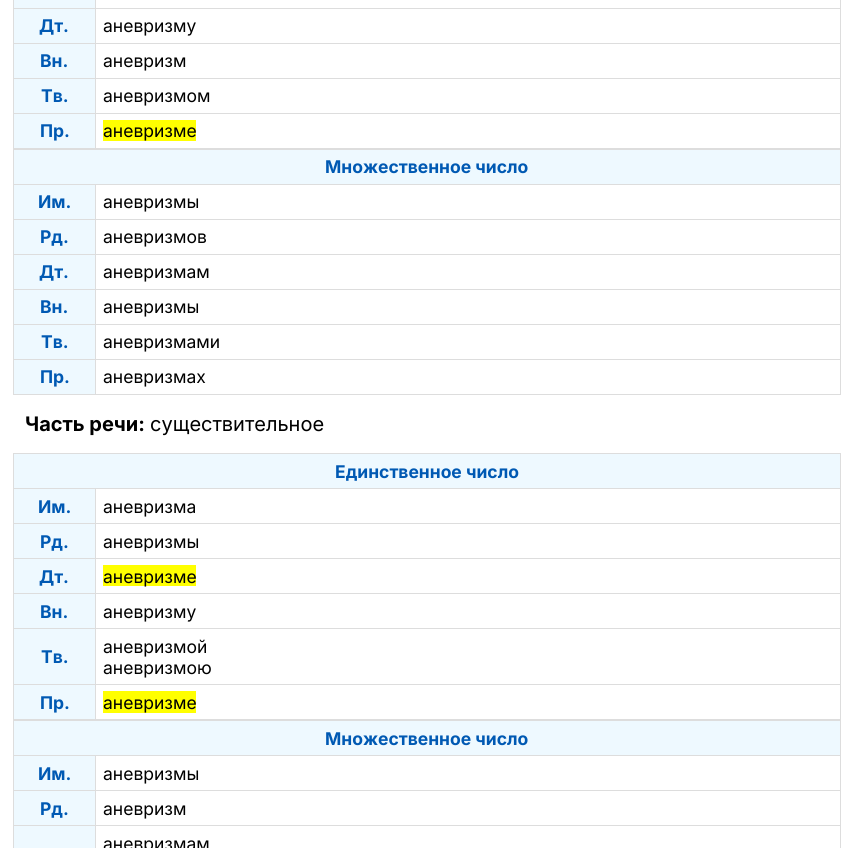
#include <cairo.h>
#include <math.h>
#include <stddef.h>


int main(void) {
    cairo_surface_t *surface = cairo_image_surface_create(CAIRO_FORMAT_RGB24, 853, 848);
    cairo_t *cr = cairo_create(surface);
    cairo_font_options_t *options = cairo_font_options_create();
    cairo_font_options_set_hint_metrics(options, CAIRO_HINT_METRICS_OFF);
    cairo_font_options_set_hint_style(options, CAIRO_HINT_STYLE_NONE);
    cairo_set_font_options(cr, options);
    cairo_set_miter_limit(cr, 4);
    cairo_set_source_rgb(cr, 1, 1, 1);
    cairo_paint(cr);
    cairo_set_source_rgb(cr, 0.867, 0.867, 0.867);
    cairo_rectangle(cr, 840, 0, 1, 149);
    cairo_fill(cr);
    cairo_rectangle(cr, 13, 148, 828, 2);
    cairo_fill(cr);
    cairo_rectangle(cr, 13, 0, 1, 149);
    cairo_fill(cr);
    cairo_set_source_rgb(cr, 0.933, 0.976, 1);
    cairo_rectangle(cr, 14, 0, 82, 8);
    cairo_fill(cr);
    cairo_set_source_rgb(cr, 0.867, 0.867, 0.867);
    cairo_rectangle(cr, 95, 8, 746, 1);
    cairo_fill(cr);
    cairo_rectangle(cr, 95, 43, 746, 1);
    cairo_fill(cr);
    cairo_rectangle(cr, 95, 78, 746, 1);
    cairo_fill(cr);
    cairo_rectangle(cr, 95, 113, 746, 1);
    cairo_fill(cr);
    cairo_rectangle(cr, 95, 113, 1, 36);
    cairo_fill(cr);
    cairo_rectangle(cr, 13, 113, 83, 1);
    cairo_fill(cr);
    cairo_rectangle(cr, 95, 78, 1, 36);
    cairo_fill(cr);
    cairo_rectangle(cr, 13, 78, 83, 1);
    cairo_fill(cr);
    cairo_rectangle(cr, 95, 43, 1, 36);
    cairo_fill(cr);
    cairo_rectangle(cr, 13, 43, 83, 1);
    cairo_fill(cr);
    cairo_rectangle(cr, 95, 8, 1, 36);
    cairo_fill(cr);
    cairo_rectangle(cr, 13, 8, 83, 1);
    cairo_fill(cr);
    cairo_rectangle(cr, 95, 0, 1, 9);
    cairo_fill(cr);
    cairo_set_source_rgb(cr, 0.933, 0.976, 1);
    cairo_rectangle(cr, 14, 9, 81, 34);
    cairo_fill(cr);
    cairo_select_font_face(cr, "Inter", CAIRO_FONT_SLANT_NORMAL, CAIRO_FONT_WEIGHT_BOLD);
    cairo_set_font_size(cr, 17.5);
    cairo_set_source_rgb(cr, 0, 0.349, 0.702);
    cairo_move_to(cr, 39, 32);
    cairo_show_text(cr, "Дт.");
    cairo_select_font_face(cr, "Inter", CAIRO_FONT_SLANT_NORMAL, CAIRO_FONT_WEIGHT_NORMAL);
    cairo_set_source_rgb(cr, 0, 0, 0);
    cairo_move_to(cr, 103, 32);
    cairo_show_text(cr, "аневризму");
    cairo_set_source_rgb(cr, 0.933, 0.976, 1);
    cairo_rectangle(cr, 14, 44, 81, 34);
    cairo_fill(cr);
    cairo_select_font_face(cr, "Inter", CAIRO_FONT_SLANT_NORMAL, CAIRO_FONT_WEIGHT_BOLD);
    cairo_set_source_rgb(cr, 0, 0.349, 0.702);
    cairo_move_to(cr, 40, 67);
    cairo_show_text(cr, "Вн.");
    cairo_select_font_face(cr, "Inter", CAIRO_FONT_SLANT_NORMAL, CAIRO_FONT_WEIGHT_NORMAL);
    cairo_set_source_rgb(cr, 0, 0, 0);
    cairo_move_to(cr, 103, 67);
    cairo_show_text(cr, "аневризм");
    cairo_set_source_rgb(cr, 0.933, 0.976, 1);
    cairo_rectangle(cr, 14, 79, 81, 34);
    cairo_fill(cr);
    cairo_select_font_face(cr, "Inter", CAIRO_FONT_SLANT_NORMAL, CAIRO_FONT_WEIGHT_BOLD);
    cairo_set_source_rgb(cr, 0, 0.349, 0.702);
    cairo_move_to(cr, 41, 102);
    cairo_show_text(cr, "Тв.");
    cairo_select_font_face(cr, "Inter", CAIRO_FONT_SLANT_NORMAL, CAIRO_FONT_WEIGHT_NORMAL);
    cairo_set_source_rgb(cr, 0, 0, 0);
    cairo_move_to(cr, 103, 102);
    cairo_show_text(cr, "аневризмом");
    cairo_set_source_rgb(cr, 0.933, 0.976, 1);
    cairo_rectangle(cr, 14, 114, 81, 34);
    cairo_fill(cr);
    cairo_select_font_face(cr, "Inter", CAIRO_FONT_SLANT_NORMAL, CAIRO_FONT_WEIGHT_BOLD);
    cairo_set_source_rgb(cr, 0, 0.349, 0.702);
    cairo_move_to(cr, 40, 137);
    cairo_show_text(cr, "Пр.");
    cairo_set_source_rgb(cr, 1, 1, 0);
    cairo_rectangle(cr, 103, 120, 93, 21);
    cairo_fill(cr);
    cairo_select_font_face(cr, "Inter", CAIRO_FONT_SLANT_NORMAL, CAIRO_FONT_WEIGHT_NORMAL);
    cairo_set_source_rgb(cr, 0, 0, 0);
    cairo_move_to(cr, 103, 137);
    cairo_show_text(cr, "аневризме");
    cairo_set_source_rgb(cr, 0.867, 0.867, 0.867);
    cairo_rectangle(cr, 840, 149, 1, 246);
    cairo_fill(cr);
    cairo_rectangle(cr, 13, 394, 828, 1);
    cairo_fill(cr);
    cairo_rectangle(cr, 13, 149, 1, 246);
    cairo_fill(cr);
    cairo_set_source_rgb(cr, 0.933, 0.976, 1);
    cairo_rectangle(cr, 14, 150, 826, 34);
    cairo_fill(cr);
    cairo_select_font_face(cr, "Inter", CAIRO_FONT_SLANT_NORMAL, CAIRO_FONT_WEIGHT_BOLD);
    cairo_set_source_rgb(cr, 0, 0.349, 0.702);
    cairo_move_to(cr, 325, 173);
    cairo_show_text(cr, "Множественное число");
    cairo_set_source_rgb(cr, 0.933, 0.976, 1);
    cairo_rectangle(cr, 14, 185, 81, 34);
    cairo_fill(cr);
    cairo_set_source_rgb(cr, 0.867, 0.867, 0.867);
    cairo_rectangle(cr, 95, 184, 746, 1);
    cairo_fill(cr);
    cairo_rectangle(cr, 95, 219, 746, 1);
    cairo_fill(cr);
    cairo_rectangle(cr, 95, 254, 746, 1);
    cairo_fill(cr);
    cairo_rectangle(cr, 95, 289, 746, 1);
    cairo_fill(cr);
    cairo_rectangle(cr, 95, 324, 746, 1);
    cairo_fill(cr);
    cairo_rectangle(cr, 95, 359, 746, 1);
    cairo_fill(cr);
    cairo_rectangle(cr, 95, 359, 1, 36);
    cairo_fill(cr);
    cairo_rectangle(cr, 13, 359, 83, 1);
    cairo_fill(cr);
    cairo_rectangle(cr, 95, 324, 1, 36);
    cairo_fill(cr);
    cairo_rectangle(cr, 13, 324, 83, 1);
    cairo_fill(cr);
    cairo_rectangle(cr, 95, 289, 1, 36);
    cairo_fill(cr);
    cairo_rectangle(cr, 13, 289, 83, 1);
    cairo_fill(cr);
    cairo_rectangle(cr, 95, 254, 1, 36);
    cairo_fill(cr);
    cairo_rectangle(cr, 13, 254, 83, 1);
    cairo_fill(cr);
    cairo_rectangle(cr, 95, 219, 1, 36);
    cairo_fill(cr);
    cairo_rectangle(cr, 13, 219, 83, 1);
    cairo_fill(cr);
    cairo_rectangle(cr, 95, 184, 1, 36);
    cairo_fill(cr);
    cairo_rectangle(cr, 13, 184, 83, 1);
    cairo_fill(cr);
    cairo_set_source_rgb(cr, 0, 0.349, 0.702);
    cairo_move_to(cr, 38, 208);
    cairo_show_text(cr, "Им.");
    cairo_select_font_face(cr, "Inter", CAIRO_FONT_SLANT_NORMAL, CAIRO_FONT_WEIGHT_NORMAL);
    cairo_set_source_rgb(cr, 0, 0, 0);
    cairo_move_to(cr, 103, 208);
    cairo_show_text(cr, "аневризмы");
    cairo_set_source_rgb(cr, 0.933, 0.976, 1);
    cairo_rectangle(cr, 14, 220, 81, 34);
    cairo_fill(cr);
    cairo_select_font_face(cr, "Inter", CAIRO_FONT_SLANT_NORMAL, CAIRO_FONT_WEIGHT_BOLD);
    cairo_set_source_rgb(cr, 0, 0.349, 0.702);
    cairo_move_to(cr, 40, 243);
    cairo_show_text(cr, "Рд.");
    cairo_select_font_face(cr, "Inter", CAIRO_FONT_SLANT_NORMAL, CAIRO_FONT_WEIGHT_NORMAL);
    cairo_set_source_rgb(cr, 0, 0, 0);
    cairo_move_to(cr, 103, 243);
    cairo_show_text(cr, "аневризмов");
    cairo_set_source_rgb(cr, 0.933, 0.976, 1);
    cairo_rectangle(cr, 14, 255, 81, 34);
    cairo_fill(cr);
    cairo_select_font_face(cr, "Inter", CAIRO_FONT_SLANT_NORMAL, CAIRO_FONT_WEIGHT_BOLD);
    cairo_set_source_rgb(cr, 0, 0.349, 0.702);
    cairo_move_to(cr, 39, 278);
    cairo_show_text(cr, "Дт.");
    cairo_select_font_face(cr, "Inter", CAIRO_FONT_SLANT_NORMAL, CAIRO_FONT_WEIGHT_NORMAL);
    cairo_set_source_rgb(cr, 0, 0, 0);
    cairo_move_to(cr, 103, 278);
    cairo_show_text(cr, "аневризмам");
    cairo_set_source_rgb(cr, 0.933, 0.976, 1);
    cairo_rectangle(cr, 14, 290, 81, 34);
    cairo_fill(cr);
    cairo_select_font_face(cr, "Inter", CAIRO_FONT_SLANT_NORMAL, CAIRO_FONT_WEIGHT_BOLD);
    cairo_set_source_rgb(cr, 0, 0.349, 0.702);
    cairo_move_to(cr, 40, 313);
    cairo_show_text(cr, "Вн.");
    cairo_select_font_face(cr, "Inter", CAIRO_FONT_SLANT_NORMAL, CAIRO_FONT_WEIGHT_NORMAL);
    cairo_set_source_rgb(cr, 0, 0, 0);
    cairo_move_to(cr, 103, 313);
    cairo_show_text(cr, "аневризмы");
    cairo_set_source_rgb(cr, 0.933, 0.976, 1);
    cairo_rectangle(cr, 14, 325, 81, 34);
    cairo_fill(cr);
    cairo_select_font_face(cr, "Inter", CAIRO_FONT_SLANT_NORMAL, CAIRO_FONT_WEIGHT_BOLD);
    cairo_set_source_rgb(cr, 0, 0.349, 0.702);
    cairo_move_to(cr, 41, 348);
    cairo_show_text(cr, "Тв.");
    cairo_select_font_face(cr, "Inter", CAIRO_FONT_SLANT_NORMAL, CAIRO_FONT_WEIGHT_NORMAL);
    cairo_set_source_rgb(cr, 0, 0, 0);
    cairo_move_to(cr, 103, 348);
    cairo_show_text(cr, "аневризмами");
    cairo_set_source_rgb(cr, 0.933, 0.976, 1);
    cairo_rectangle(cr, 14, 360, 81, 34);
    cairo_fill(cr);
    cairo_select_font_face(cr, "Inter", CAIRO_FONT_SLANT_NORMAL, CAIRO_FONT_WEIGHT_BOLD);
    cairo_set_source_rgb(cr, 0, 0.349, 0.702);
    cairo_move_to(cr, 40, 383);
    cairo_show_text(cr, "Пр.");
    cairo_select_font_face(cr, "Inter", CAIRO_FONT_SLANT_NORMAL, CAIRO_FONT_WEIGHT_NORMAL);
    cairo_set_source_rgb(cr, 0, 0, 0);
    cairo_move_to(cr, 103, 383);
    cairo_show_text(cr, "аневризмах");
    cairo_select_font_face(cr, "Inter", CAIRO_FONT_SLANT_NORMAL, CAIRO_FONT_WEIGHT_BOLD);
    cairo_set_font_size(cr, 20);
    cairo_move_to(cr, 25, 431);
    cairo_show_text(cr, "Часть речи:");
    cairo_select_font_face(cr, "Inter", CAIRO_FONT_SLANT_NORMAL, CAIRO_FONT_WEIGHT_NORMAL);
    cairo_move_to(cr, 150, 431);
    cairo_show_text(cr, "существительное");
    cairo_set_source_rgb(cr, 0.867, 0.867, 0.867);
    cairo_rectangle(cr, 13, 453, 828, 1);
    cairo_fill(cr);
    cairo_rectangle(cr, 840, 453, 1, 267);
    cairo_fill(cr);
    cairo_rectangle(cr, 13, 719, 828, 2);
    cairo_fill(cr);
    cairo_rectangle(cr, 13, 453, 1, 395);
    cairo_fill(cr);
    cairo_set_source_rgb(cr, 0.933, 0.976, 1);
    cairo_rectangle(cr, 14, 454, 826, 34);
    cairo_fill(cr);
    cairo_select_font_face(cr, "Inter", CAIRO_FONT_SLANT_NORMAL, CAIRO_FONT_WEIGHT_BOLD);
    cairo_set_font_size(cr, 17.5);
    cairo_set_source_rgb(cr, 0, 0.349, 0.702);
    cairo_move_to(cr, 335, 478);
    cairo_show_text(cr, "Единственное число");
    cairo_set_source_rgb(cr, 0.933, 0.976, 1);
    cairo_rectangle(cr, 14, 489, 81, 34);
    cairo_fill(cr);
    cairo_set_source_rgb(cr, 0.867, 0.867, 0.867);
    cairo_rectangle(cr, 95, 488, 746, 1);
    cairo_fill(cr);
    cairo_rectangle(cr, 95, 523, 746, 1);
    cairo_fill(cr);
    cairo_rectangle(cr, 95, 558, 746, 1);
    cairo_fill(cr);
    cairo_rectangle(cr, 95, 593, 746, 1);
    cairo_fill(cr);
    cairo_rectangle(cr, 95, 628, 746, 1);
    cairo_fill(cr);
    cairo_rectangle(cr, 95, 684, 746, 1);
    cairo_fill(cr);
    cairo_rectangle(cr, 95, 684, 1, 36);
    cairo_fill(cr);
    cairo_rectangle(cr, 13, 684, 83, 1);
    cairo_fill(cr);
    cairo_rectangle(cr, 95, 628, 1, 57);
    cairo_fill(cr);
    cairo_rectangle(cr, 13, 628, 83, 1);
    cairo_fill(cr);
    cairo_rectangle(cr, 95, 593, 1, 36);
    cairo_fill(cr);
    cairo_rectangle(cr, 13, 593, 83, 1);
    cairo_fill(cr);
    cairo_rectangle(cr, 95, 558, 1, 36);
    cairo_fill(cr);
    cairo_rectangle(cr, 13, 558, 83, 1);
    cairo_fill(cr);
    cairo_rectangle(cr, 95, 523, 1, 36);
    cairo_fill(cr);
    cairo_rectangle(cr, 13, 523, 83, 1);
    cairo_fill(cr);
    cairo_rectangle(cr, 95, 488, 1, 36);
    cairo_fill(cr);
    cairo_rectangle(cr, 13, 488, 83, 1);
    cairo_fill(cr);
    cairo_set_source_rgb(cr, 0, 0.349, 0.702);
    cairo_move_to(cr, 38, 513);
    cairo_show_text(cr, "Им.");
    cairo_select_font_face(cr, "Inter", CAIRO_FONT_SLANT_NORMAL, CAIRO_FONT_WEIGHT_NORMAL);
    cairo_set_source_rgb(cr, 0, 0, 0);
    cairo_move_to(cr, 103, 513);
    cairo_show_text(cr, "аневризма");
    cairo_set_source_rgb(cr, 0.933, 0.976, 1);
    cairo_rectangle(cr, 14, 524, 81, 34);
    cairo_fill(cr);
    cairo_select_font_face(cr, "Inter", CAIRO_FONT_SLANT_NORMAL, CAIRO_FONT_WEIGHT_BOLD);
    cairo_set_source_rgb(cr, 0, 0.349, 0.702);
    cairo_move_to(cr, 40, 548);
    cairo_show_text(cr, "Рд.");
    cairo_select_font_face(cr, "Inter", CAIRO_FONT_SLANT_NORMAL, CAIRO_FONT_WEIGHT_NORMAL);
    cairo_set_source_rgb(cr, 0, 0, 0);
    cairo_move_to(cr, 103, 548);
    cairo_show_text(cr, "аневризмы");
    cairo_set_source_rgb(cr, 0.933, 0.976, 1);
    cairo_rectangle(cr, 14, 559, 81, 34);
    cairo_fill(cr);
    cairo_select_font_face(cr, "Inter", CAIRO_FONT_SLANT_NORMAL, CAIRO_FONT_WEIGHT_BOLD);
    cairo_set_source_rgb(cr, 0, 0.349, 0.702);
    cairo_move_to(cr, 39, 583);
    cairo_show_text(cr, "Дт.");
    cairo_set_source_rgb(cr, 1, 1, 0);
    cairo_rectangle(cr, 103, 565, 93, 21);
    cairo_fill(cr);
    cairo_select_font_face(cr, "Inter", CAIRO_FONT_SLANT_NORMAL, CAIRO_FONT_WEIGHT_NORMAL);
    cairo_set_source_rgb(cr, 0, 0, 0);
    cairo_move_to(cr, 103, 583);
    cairo_show_text(cr, "аневризме");
    cairo_set_source_rgb(cr, 0.933, 0.976, 1);
    cairo_rectangle(cr, 14, 594, 81, 34);
    cairo_fill(cr);
    cairo_select_font_face(cr, "Inter", CAIRO_FONT_SLANT_NORMAL, CAIRO_FONT_WEIGHT_BOLD);
    cairo_set_source_rgb(cr, 0, 0.349, 0.702);
    cairo_move_to(cr, 40, 618);
    cairo_show_text(cr, "Вн.");
    cairo_select_font_face(cr, "Inter", CAIRO_FONT_SLANT_NORMAL, CAIRO_FONT_WEIGHT_NORMAL);
    cairo_set_source_rgb(cr, 0, 0, 0);
    cairo_move_to(cr, 103, 618);
    cairo_show_text(cr, "аневризму");
    cairo_set_source_rgb(cr, 0.933, 0.976, 1);
    cairo_rectangle(cr, 14, 629, 81, 55);
    cairo_fill(cr);
    cairo_select_font_face(cr, "Inter", CAIRO_FONT_SLANT_NORMAL, CAIRO_FONT_WEIGHT_BOLD);
    cairo_set_source_rgb(cr, 0, 0.349, 0.702);
    cairo_move_to(cr, 41, 663);
    cairo_show_text(cr, "Тв.");
    cairo_select_font_face(cr, "Inter", CAIRO_FONT_SLANT_NORMAL, CAIRO_FONT_WEIGHT_NORMAL);
    cairo_set_source_rgb(cr, 0, 0, 0);
    cairo_move_to(cr, 103, 653);
    cairo_show_text(cr, "аневризмой");
    cairo_move_to(cr, 103, 674);
    cairo_show_text(cr, "аневризмою");
    cairo_set_source_rgb(cr, 0.933, 0.976, 1);
    cairo_rectangle(cr, 14, 685, 81, 34);
    cairo_fill(cr);
    cairo_select_font_face(cr, "Inter", CAIRO_FONT_SLANT_NORMAL, CAIRO_FONT_WEIGHT_BOLD);
    cairo_set_source_rgb(cr, 0, 0.349, 0.702);
    cairo_move_to(cr, 40, 709);
    cairo_show_text(cr, "Пр.");
    cairo_set_source_rgb(cr, 1, 1, 0);
    cairo_rectangle(cr, 103, 691, 93, 22);
    cairo_fill(cr);
    cairo_select_font_face(cr, "Inter", CAIRO_FONT_SLANT_NORMAL, CAIRO_FONT_WEIGHT_NORMAL);
    cairo_set_source_rgb(cr, 0, 0, 0);
    cairo_move_to(cr, 103, 709);
    cairo_show_text(cr, "аневризме");
    cairo_set_source_rgb(cr, 0.867, 0.867, 0.867);
    cairo_rectangle(cr, 840, 720, 1, 128);
    cairo_fill(cr);
    cairo_set_source_rgb(cr, 0.933, 0.976, 1);
    cairo_rectangle(cr, 14, 721, 826, 34);
    cairo_fill(cr);
    cairo_select_font_face(cr, "Inter", CAIRO_FONT_SLANT_NORMAL, CAIRO_FONT_WEIGHT_BOLD);
    cairo_set_source_rgb(cr, 0, 0.349, 0.702);
    cairo_move_to(cr, 325, 745);
    cairo_show_text(cr, "Множественное число");
    cairo_set_source_rgb(cr, 0.933, 0.976, 1);
    cairo_rectangle(cr, 14, 756, 81, 34);
    cairo_fill(cr);
    cairo_set_source_rgb(cr, 0.867, 0.867, 0.867);
    cairo_rectangle(cr, 95, 755, 746, 1);
    cairo_fill(cr);
    cairo_rectangle(cr, 95, 790, 746, 1);
    cairo_fill(cr);
    cairo_rectangle(cr, 95, 825, 746, 1);
    cairo_fill(cr);
    cairo_rectangle(cr, 95, 825, 1, 23);
    cairo_fill(cr);
    cairo_rectangle(cr, 13, 825, 83, 1);
    cairo_fill(cr);
    cairo_rectangle(cr, 95, 790, 1, 36);
    cairo_fill(cr);
    cairo_rectangle(cr, 13, 790, 83, 1);
    cairo_fill(cr);
    cairo_rectangle(cr, 95, 755, 1, 36);
    cairo_fill(cr);
    cairo_rectangle(cr, 13, 755, 83, 1);
    cairo_fill(cr);
    cairo_set_source_rgb(cr, 0, 0.349, 0.702);
    cairo_move_to(cr, 38, 780);
    cairo_show_text(cr, "Им.");
    cairo_select_font_face(cr, "Inter", CAIRO_FONT_SLANT_NORMAL, CAIRO_FONT_WEIGHT_NORMAL);
    cairo_set_source_rgb(cr, 0, 0, 0);
    cairo_move_to(cr, 103, 780);
    cairo_show_text(cr, "аневризмы");
    cairo_set_source_rgb(cr, 0.933, 0.976, 1);
    cairo_rectangle(cr, 14, 791, 81, 34);
    cairo_fill(cr);
    cairo_select_font_face(cr, "Inter", CAIRO_FONT_SLANT_NORMAL, CAIRO_FONT_WEIGHT_BOLD);
    cairo_set_source_rgb(cr, 0, 0.349, 0.702);
    cairo_move_to(cr, 40, 815);
    cairo_show_text(cr, "Рд.");
    cairo_select_font_face(cr, "Inter", CAIRO_FONT_SLANT_NORMAL, CAIRO_FONT_WEIGHT_NORMAL);
    cairo_set_source_rgb(cr, 0, 0, 0);
    cairo_move_to(cr, 103, 815);
    cairo_show_text(cr, "аневризм");
    cairo_set_source_rgb(cr, 0.933, 0.976, 1);
    cairo_rectangle(cr, 14, 826, 81, 22);
    cairo_fill(cr);
    cairo_set_source_rgb(cr, 0, 0, 0);
    cairo_move_to(cr, 103, 850);
    cairo_show_text(cr, "аневризмам");
    cairo_surface_write_to_png(surface, "page.png");
    cairo_font_options_destroy(options);
    cairo_destroy(cr);
    cairo_surface_destroy(surface);
    return 0;
}
